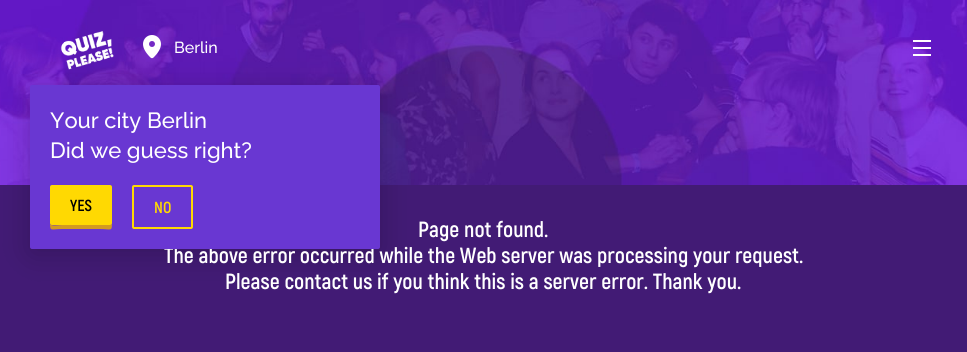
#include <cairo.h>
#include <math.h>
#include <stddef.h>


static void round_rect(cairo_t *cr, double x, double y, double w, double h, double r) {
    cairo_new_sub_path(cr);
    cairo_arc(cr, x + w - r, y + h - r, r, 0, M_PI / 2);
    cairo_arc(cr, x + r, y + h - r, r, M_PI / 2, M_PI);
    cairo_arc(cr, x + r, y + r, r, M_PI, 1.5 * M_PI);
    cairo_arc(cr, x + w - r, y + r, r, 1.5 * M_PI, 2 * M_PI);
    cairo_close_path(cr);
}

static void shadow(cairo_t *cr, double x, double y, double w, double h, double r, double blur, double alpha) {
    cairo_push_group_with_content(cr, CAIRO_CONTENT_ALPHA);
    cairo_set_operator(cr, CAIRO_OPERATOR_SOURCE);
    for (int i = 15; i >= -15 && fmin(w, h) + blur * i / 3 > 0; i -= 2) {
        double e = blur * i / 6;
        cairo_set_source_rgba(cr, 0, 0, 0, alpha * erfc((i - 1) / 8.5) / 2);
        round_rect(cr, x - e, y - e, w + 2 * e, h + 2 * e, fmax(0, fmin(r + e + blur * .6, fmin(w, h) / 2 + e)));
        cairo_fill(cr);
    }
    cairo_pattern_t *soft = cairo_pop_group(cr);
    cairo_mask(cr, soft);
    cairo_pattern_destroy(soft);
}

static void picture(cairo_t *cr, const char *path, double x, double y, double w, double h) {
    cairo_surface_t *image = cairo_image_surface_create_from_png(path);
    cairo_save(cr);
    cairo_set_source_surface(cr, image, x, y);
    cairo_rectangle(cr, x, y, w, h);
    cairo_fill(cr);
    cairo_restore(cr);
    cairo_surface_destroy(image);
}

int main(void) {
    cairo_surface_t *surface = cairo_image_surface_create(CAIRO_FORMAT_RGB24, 967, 352);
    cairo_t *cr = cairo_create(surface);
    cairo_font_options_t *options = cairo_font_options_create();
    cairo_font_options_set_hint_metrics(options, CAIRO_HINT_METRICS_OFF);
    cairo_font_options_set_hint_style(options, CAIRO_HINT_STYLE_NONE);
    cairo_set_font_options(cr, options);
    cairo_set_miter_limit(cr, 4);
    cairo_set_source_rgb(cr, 0.259, 0.106, 0.459);
    cairo_paint(cr);
    picture(cr, "img1.png", 0, 0, 967, 185);
    picture(cr, "img2.png", 60, 31, 54, 39);
    picture(cr, "img3.png", 913, 40, 18, 16);
    picture(cr, "img4.png", 143, 35, 18, 24);
    cairo_select_font_face(cr, "Raleway Medium", CAIRO_FONT_SLANT_NORMAL, CAIRO_FONT_WEIGHT_NORMAL);
    cairo_set_font_size(cr, 16);
    cairo_set_source_rgb(cr, 1, 1, 1);
    cairo_move_to(cr, 174, 53);
    cairo_show_text(cr, "Berlin");
    cairo_set_source_rgb(cr, 0, 0, 0);
    shadow(cr, 30, 90, 350, 164, 2, 15, 0.2);
    cairo_select_font_face(cr, "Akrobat", CAIRO_FONT_SLANT_NORMAL, CAIRO_FONT_WEIGHT_BOLD);
    cairo_set_font_size(cr, 22);
    cairo_set_source_rgb(cr, 1, 1, 1);
    cairo_move_to(cr, 164, 263);
    cairo_show_text(cr, "The above error occurred while the Web server was processing your request.");
    cairo_set_source_rgb(cr, 0.412, 0.216, 0.824);
    round_rect(cr, 30, 85, 350, 164, 2);
    cairo_fill(cr);
    cairo_select_font_face(cr, "Raleway Medium", CAIRO_FONT_SLANT_NORMAL, CAIRO_FONT_WEIGHT_NORMAL);
    cairo_set_source_rgb(cr, 1, 1, 1);
    cairo_move_to(cr, 50, 128);
    cairo_show_text(cr, "Your city Berlin");
    cairo_move_to(cr, 50, 158);
    cairo_show_text(cr, "Did we guess right?");
    cairo_set_source_rgb(cr, 0.824, 0.604, 0.129);
    cairo_new_path(cr);
    cairo_move_to(cr, 50, 223);
    cairo_curve_to(cr, 50, 232, 51, 229, 62, 229);
    cairo_line_to(cr, 100, 229);
    cairo_curve_to(cr, 111, 229, 112, 232, 112, 223);
    cairo_line_to(cr, 111, 225);
    cairo_line_to(cr, 62, 225);
    cairo_curve_to(cr, 58, 225, 50, 227, 50, 223);
    cairo_close_path(cr);
    cairo_fill(cr);
    cairo_set_source_rgb(cr, 1, 0.851, 0.008);
    round_rect(cr, 50, 185, 62, 40, 2);
    cairo_fill(cr);
    cairo_select_font_face(cr, "Akrobat", CAIRO_FONT_SLANT_NORMAL, CAIRO_FONT_WEIGHT_BOLD);
    cairo_set_font_size(cr, 16);
    cairo_set_source_rgb(cr, 0, 0, 0);
    cairo_move_to(cr, 70, 211);
    cairo_show_text(cr, "YES");
    round_rect(cr, 133, 186, 59, 42, 1);
    cairo_set_source_rgb(cr, 1, 0.851, 0.008);
    cairo_stroke(cr);
    cairo_move_to(cr, 154, 213);
    cairo_show_text(cr, "NO");
    cairo_set_font_size(cr, 22);
    cairo_set_source_rgb(cr, 1, 1, 1);
    cairo_move_to(cr, 418, 237);
    cairo_show_text(cr, "Page not found.");
    cairo_move_to(cr, 225, 289);
    cairo_show_text(cr, "Please contact us if you think this is a server error. Thank you.");
    cairo_surface_write_to_png(surface, "page.png");
    cairo_font_options_destroy(options);
    cairo_destroy(cr);
    cairo_surface_destroy(surface);
    return 0;
}
